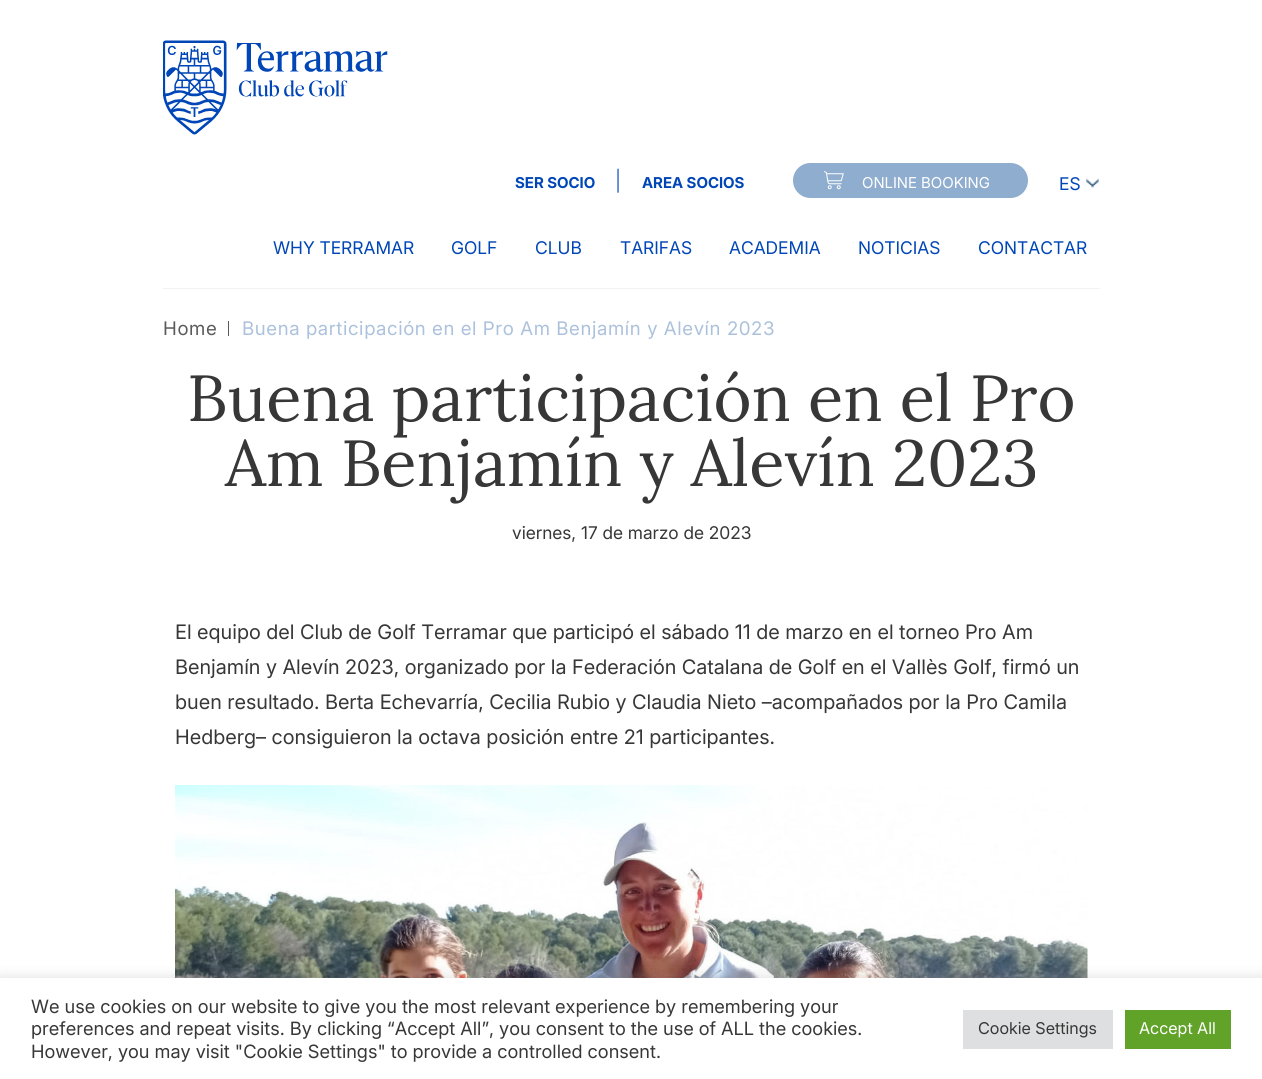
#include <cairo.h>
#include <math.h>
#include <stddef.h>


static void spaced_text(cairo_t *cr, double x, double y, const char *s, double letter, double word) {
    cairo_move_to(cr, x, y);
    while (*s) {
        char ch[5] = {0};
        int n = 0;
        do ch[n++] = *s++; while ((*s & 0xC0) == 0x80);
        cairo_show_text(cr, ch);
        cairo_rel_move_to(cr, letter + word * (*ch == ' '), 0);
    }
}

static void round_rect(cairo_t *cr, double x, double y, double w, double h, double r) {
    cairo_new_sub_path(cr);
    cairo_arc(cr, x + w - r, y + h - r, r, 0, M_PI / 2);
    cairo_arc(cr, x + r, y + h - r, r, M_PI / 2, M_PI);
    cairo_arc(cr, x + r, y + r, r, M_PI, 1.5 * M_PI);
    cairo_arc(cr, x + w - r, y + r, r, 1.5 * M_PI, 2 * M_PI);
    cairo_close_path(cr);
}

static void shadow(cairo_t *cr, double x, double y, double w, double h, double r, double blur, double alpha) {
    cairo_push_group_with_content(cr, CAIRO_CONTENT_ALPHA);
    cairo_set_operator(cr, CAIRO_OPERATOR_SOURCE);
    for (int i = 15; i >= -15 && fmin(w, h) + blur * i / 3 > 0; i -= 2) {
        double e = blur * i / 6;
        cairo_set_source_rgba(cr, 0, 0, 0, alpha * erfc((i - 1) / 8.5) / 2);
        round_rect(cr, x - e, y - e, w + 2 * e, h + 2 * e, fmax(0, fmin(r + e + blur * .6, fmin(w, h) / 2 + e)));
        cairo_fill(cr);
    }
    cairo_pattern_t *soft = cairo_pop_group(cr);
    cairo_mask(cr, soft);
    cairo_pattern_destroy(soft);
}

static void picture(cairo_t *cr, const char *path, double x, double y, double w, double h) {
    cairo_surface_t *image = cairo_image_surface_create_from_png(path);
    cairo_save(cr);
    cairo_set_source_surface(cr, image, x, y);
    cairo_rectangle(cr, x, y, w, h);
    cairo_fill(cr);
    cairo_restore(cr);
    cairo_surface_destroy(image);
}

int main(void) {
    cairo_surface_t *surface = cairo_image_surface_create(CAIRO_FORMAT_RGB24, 1262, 1079);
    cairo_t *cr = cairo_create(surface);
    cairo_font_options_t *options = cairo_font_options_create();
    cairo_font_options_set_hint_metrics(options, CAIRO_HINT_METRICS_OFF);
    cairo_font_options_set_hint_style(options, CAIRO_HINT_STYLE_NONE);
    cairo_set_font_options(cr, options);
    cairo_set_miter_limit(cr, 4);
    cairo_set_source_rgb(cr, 1, 1, 1);
    cairo_paint(cr);
    cairo_set_source_rgb(cr, 0.949, 0.949, 0.949);
    cairo_rectangle(cr, 163, 288, 937, 1);
    cairo_fill(cr);
    picture(cr, "img1.png", 163, 40, 225, 95);
    cairo_select_font_face(cr, "Inter", CAIRO_FONT_SLANT_NORMAL, CAIRO_FONT_WEIGHT_BOLD);
    cairo_set_font_size(cr, 15);
    cairo_set_source_rgb(cr, 0, 0.275, 0.718);
    cairo_move_to(cr, 515, 188);
    cairo_show_text(cr, "SER SOCIO");
    cairo_select_font_face(cr, "Inter Light", CAIRO_FONT_SLANT_NORMAL, CAIRO_FONT_WEIGHT_NORMAL);
    cairo_set_font_size(cr, 20);
    cairo_move_to(cr, 615, 188);
    cairo_show_text(cr, "|");
    cairo_select_font_face(cr, "Inter", CAIRO_FONT_SLANT_NORMAL, CAIRO_FONT_WEIGHT_BOLD);
    cairo_set_font_size(cr, 15);
    cairo_move_to(cr, 642, 188);
    cairo_show_text(cr, "AREA SOCIOS");
    cairo_set_source_rgb(cr, 0.561, 0.678, 0.812);
    round_rect(cr, 793, 163, 235, 35, 17.5);
    cairo_fill(cr);
    picture(cr, "img2.png", 824, 171, 20, 19);
    cairo_select_font_face(cr, "Inter", CAIRO_FONT_SLANT_NORMAL, CAIRO_FONT_WEIGHT_NORMAL);
    cairo_set_source_rgb(cr, 1, 1, 1);
    cairo_move_to(cr, 862, 188);
    cairo_show_text(cr, "ONLINE BOOKING");
    cairo_set_font_size(cr, 17.5);
    cairo_set_source_rgb(cr, 0, 0.275, 0.718);
    cairo_move_to(cr, 1059, 190);
    cairo_show_text(cr, "ES");
    picture(cr, "img3.png", 1086, 178, 13, 10);
    cairo_move_to(cr, 273, 254);
    cairo_show_text(cr, "WHY TERRAMAR");
    cairo_move_to(cr, 451, 254);
    cairo_show_text(cr, "GOLF");
    cairo_move_to(cr, 535, 254);
    cairo_show_text(cr, "CLUB");
    cairo_move_to(cr, 620, 254);
    cairo_show_text(cr, "TARIFAS");
    cairo_move_to(cr, 729, 254);
    cairo_show_text(cr, "ACADEMIA");
    cairo_move_to(cr, 858, 254);
    cairo_show_text(cr, "NOTICIAS");
    cairo_move_to(cr, 978, 254);
    cairo_show_text(cr, "CONTACTAR");
    cairo_set_font_size(cr, 18.75);
    cairo_set_source_rgb(cr, 0.353, 0.353, 0.353);
    spaced_text(cr, 163, 335, "Home", 0.62, 0);
    cairo_rectangle(cr, 228, 321, 1, 15);
    cairo_fill(cr);
    cairo_set_source_rgb(cr, 0.675, 0.757, 0.863);
    spaced_text(cr, 242, 335, "Buena participación en el Pro Am Benjamín y Alevín 2023", 0.62, 0);
    cairo_select_font_face(cr, "Lora", CAIRO_FONT_SLANT_NORMAL, CAIRO_FONT_WEIGHT_NORMAL);
    cairo_set_font_size(cr, 65);
    cairo_set_source_rgb(cr, 0.216, 0.216, 0.216);
    cairo_move_to(cr, 187, 421);
    cairo_show_text(cr, "Buena participación en el Pro");
    cairo_move_to(cr, 225, 486);
    cairo_show_text(cr, "Am Benjamín y Alevín 2023");
    cairo_select_font_face(cr, "Inter", CAIRO_FONT_SLANT_NORMAL, CAIRO_FONT_WEIGHT_NORMAL);
    cairo_set_font_size(cr, 17.5);
    cairo_move_to(cr, 512, 539);
    cairo_show_text(cr, "viernes, 17 de marzo de 2023");
    cairo_set_font_size(cr, 20);
    cairo_move_to(cr, 175, 639);
    cairo_show_text(cr, "El equipo del Club de Golf Terramar que participó el sábado 11 de marzo en el torneo Pro Am");
    cairo_move_to(cr, 175, 674);
    cairo_show_text(cr, "Benjamín y Alevín 2023, organizado por la Federación Catalana de Golf en el Vallès Golf, firmó un");
    cairo_move_to(cr, 175, 709);
    cairo_show_text(cr, "buen resultado. Berta Echevarría, Cecilia Rubio y Claudia Nieto –acompañados por la Pro Camila");
    cairo_move_to(cr, 175, 744);
    cairo_show_text(cr, "Hedberg– consiguieron la octava posición entre 21 participantes.");
    picture(cr, "img4.png", 175, 785, 913, 193);
    cairo_set_source_rgb(cr, 0.675, 0.671, 0.671);
    shadow(cr, 0, 976, 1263, 103, 0, 6, 0.3);
    cairo_set_source_rgb(cr, 1, 1, 1);
    cairo_rectangle(cr, 0, 978, 1262, 101);
    cairo_fill(cr);
    cairo_set_font_size(cr, 18.35);
    cairo_set_source_rgb(cr, 0.216, 0.216, 0.216);
    cairo_move_to(cr, 31, 1013);
    cairo_show_text(cr, "We use cookies on our website to give you the most relevant experience by remembering your");
    cairo_move_to(cr, 31, 1035);
    cairo_show_text(cr, "preferences and repeat visits. By clicking “Accept All”, you consent to the use of ALL the cookies.");
    cairo_move_to(cr, 31, 1058);
    cairo_show_text(cr, "However, you may visit \"Cookie Settings\" to provide a controlled consent.");
    cairo_set_source_rgb(cr, 0.871, 0.875, 0.878);
    cairo_rectangle(cr, 963, 1010, 150, 39);
    cairo_fill(cr);
    cairo_set_font_size(cr, 16.25);
    cairo_set_source_rgb(cr, 0.216, 0.216, 0.216);
    cairo_move_to(cr, 978, 1034);
    cairo_show_text(cr, "Cookie Settings");
    cairo_set_source_rgb(cr, 0.38, 0.635, 0.161);
    cairo_rectangle(cr, 1125, 1010, 106, 39);
    cairo_fill(cr);
    cairo_set_source_rgb(cr, 1, 1, 1);
    cairo_move_to(cr, 1139, 1034);
    cairo_show_text(cr, "Accept All");
    cairo_surface_write_to_png(surface, "page.png");
    cairo_font_options_destroy(options);
    cairo_destroy(cr);
    cairo_surface_destroy(surface);
    return 0;
}
